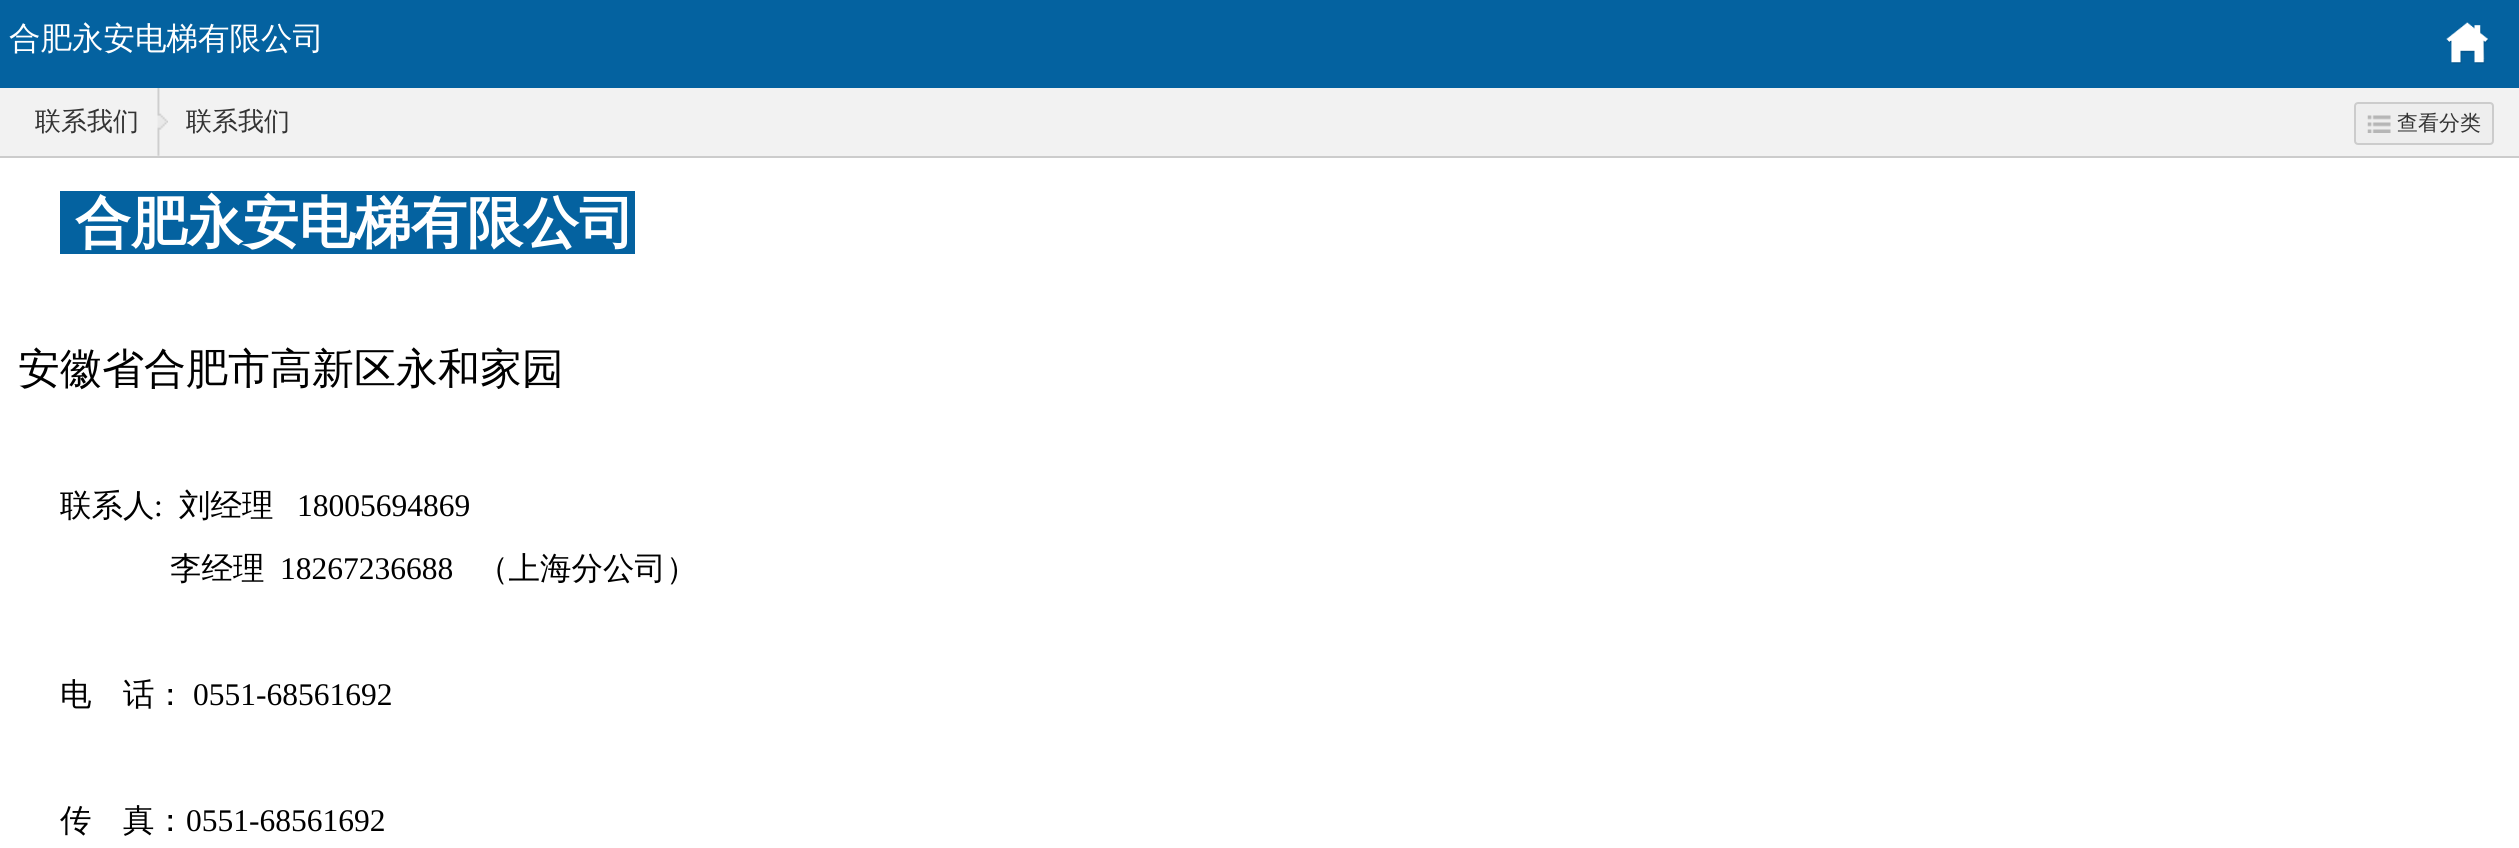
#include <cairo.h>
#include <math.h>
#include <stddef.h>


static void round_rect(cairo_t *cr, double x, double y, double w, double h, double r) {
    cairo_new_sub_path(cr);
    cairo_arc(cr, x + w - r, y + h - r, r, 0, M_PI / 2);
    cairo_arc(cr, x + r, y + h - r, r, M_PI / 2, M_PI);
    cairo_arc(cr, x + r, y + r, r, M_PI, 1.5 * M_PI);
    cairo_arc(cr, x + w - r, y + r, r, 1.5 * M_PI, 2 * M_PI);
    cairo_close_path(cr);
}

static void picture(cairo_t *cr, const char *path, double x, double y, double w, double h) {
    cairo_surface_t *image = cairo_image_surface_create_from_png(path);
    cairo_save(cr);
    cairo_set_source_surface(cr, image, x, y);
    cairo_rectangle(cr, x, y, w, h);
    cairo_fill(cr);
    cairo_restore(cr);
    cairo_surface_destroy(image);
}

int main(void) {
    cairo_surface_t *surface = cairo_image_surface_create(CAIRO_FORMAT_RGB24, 2519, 848);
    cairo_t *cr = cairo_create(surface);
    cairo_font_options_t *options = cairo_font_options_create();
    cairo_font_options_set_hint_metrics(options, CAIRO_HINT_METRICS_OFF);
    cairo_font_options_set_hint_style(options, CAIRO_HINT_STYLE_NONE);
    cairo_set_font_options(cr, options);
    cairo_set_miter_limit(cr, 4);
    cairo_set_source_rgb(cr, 1, 1, 1);
    cairo_paint(cr);
    cairo_set_source_rgb(cr, 0.016, 0.384, 0.627);
    cairo_rectangle(cr, 0, 0, 2519, 88);
    cairo_fill(cr);
    cairo_select_font_face(cr, "WenQuanYi Zen Hei Medium", CAIRO_FONT_SLANT_NORMAL, CAIRO_FONT_WEIGHT_NORMAL);
    cairo_set_font_size(cr, 31.5);
    cairo_set_source_rgb(cr, 1, 1, 1);
    cairo_move_to(cr, 9, 49);
    cairo_show_text(cr, "合肥永安电梯有限公司");
    picture(cr, "img1.png", 2446, 22, 43, 42);
    cairo_set_source_rgb(cr, 0.949, 0.949, 0.949);
    cairo_rectangle(cr, 0, 88, 2519, 68);
    cairo_fill(cr);
    cairo_set_source_rgb(cr, 0.8, 0.8, 0.8);
    cairo_rectangle(cr, 0, 156, 2519, 2);
    cairo_fill(cr);
    cairo_set_font_size(cr, 26);
    cairo_set_source_rgb(cr, 0.2, 0.2, 0.2);
    cairo_move_to(cr, 35, 130);
    cairo_show_text(cr, "联系我们");
    picture(cr, "img2.png", 157, 88, 11, 68);
    cairo_move_to(cr, 186, 130);
    cairo_show_text(cr, "联系我们");
    cairo_set_source_rgb(cr, 0.933, 0.933, 0.933);
    round_rect(cr, 2355, 103, 138, 41, 3);
    cairo_fill_preserve(cr);
    cairo_set_source_rgb(cr, 0.8, 0.8, 0.8);
    cairo_stroke(cr);
    picture(cr, "img3.png", 2367, 115, 24, 18);
    cairo_set_font_size(cr, 21);
    cairo_set_source_rgb(cr, 0.2, 0.2, 0.2);
    cairo_move_to(cr, 2397, 130);
    cairo_show_text(cr, "查看分类");
    cairo_set_source_rgb(cr, 0.016, 0.384, 0.627);
    cairo_rectangle(cr, 60, 191, 575, 63);
    cairo_fill(cr);
    cairo_select_font_face(cr, "WenQuanYi Zen Hei", CAIRO_FONT_SLANT_NORMAL, CAIRO_FONT_WEIGHT_BOLD);
    cairo_set_font_size(cr, 56);
    cairo_set_source_rgb(cr, 1, 1, 1);
    cairo_move_to(cr, 75, 242);
    cairo_show_text(cr, "合肥永安电梯有限公司");
    cairo_select_font_face(cr, "WenQuanYi Zen Hei Medium", CAIRO_FONT_SLANT_NORMAL, CAIRO_FONT_WEIGHT_NORMAL);
    cairo_set_font_size(cr, 42);
    cairo_set_source_rgb(cr, 0, 0, 0);
    cairo_move_to(cr, 18, 383);
    cairo_show_text(cr, "安徽省合肥市高新区永和家园");
    cairo_set_font_size(cr, 31.5);
    cairo_move_to(cr, 60, 516);
    cairo_show_text(cr, "联系人");
    cairo_select_font_face(cr, "Liberation Serif", CAIRO_FONT_SLANT_NORMAL, CAIRO_FONT_WEIGHT_NORMAL);
    cairo_move_to(cr, 154, 516);
    cairo_show_text(cr, ":");
    cairo_select_font_face(cr, "WenQuanYi Zen Hei Medium", CAIRO_FONT_SLANT_NORMAL, CAIRO_FONT_WEIGHT_NORMAL);
    cairo_move_to(cr, 179, 516);
    cairo_show_text(cr, "刘经理");
    cairo_select_font_face(cr, "Liberation Serif", CAIRO_FONT_SLANT_NORMAL, CAIRO_FONT_WEIGHT_NORMAL);
    cairo_move_to(cr, 297, 516);
    cairo_show_text(cr, "18005694869");
    cairo_select_font_face(cr, "WenQuanYi Zen Hei Medium", CAIRO_FONT_SLANT_NORMAL, CAIRO_FONT_WEIGHT_NORMAL);
    cairo_move_to(cr, 170, 579);
    cairo_show_text(cr, "李经理");
    cairo_select_font_face(cr, "Liberation Serif", CAIRO_FONT_SLANT_NORMAL, CAIRO_FONT_WEIGHT_NORMAL);
    cairo_move_to(cr, 280, 579);
    cairo_show_text(cr, "18267236688");
    cairo_select_font_face(cr, "WenQuanYi Zen Hei Medium", CAIRO_FONT_SLANT_NORMAL, CAIRO_FONT_WEIGHT_NORMAL);
    cairo_move_to(cr, 477, 579);
    cairo_show_text(cr, "（上海分公司）");
    cairo_move_to(cr, 60, 705);
    cairo_show_text(cr, "电");
    cairo_move_to(cr, 123, 705);
    cairo_show_text(cr, "话：");
    cairo_select_font_face(cr, "Liberation Serif", CAIRO_FONT_SLANT_NORMAL, CAIRO_FONT_WEIGHT_NORMAL);
    cairo_move_to(cr, 193, 705);
    cairo_show_text(cr, "0551-68561692");
    cairo_select_font_face(cr, "WenQuanYi Zen Hei Medium", CAIRO_FONT_SLANT_NORMAL, CAIRO_FONT_WEIGHT_NORMAL);
    cairo_move_to(cr, 60, 831);
    cairo_show_text(cr, "传");
    cairo_move_to(cr, 123, 831);
    cairo_show_text(cr, "真：");
    cairo_select_font_face(cr, "Liberation Serif", CAIRO_FONT_SLANT_NORMAL, CAIRO_FONT_WEIGHT_NORMAL);
    cairo_move_to(cr, 186, 831);
    cairo_show_text(cr, "0551-68561692");
    cairo_surface_write_to_png(surface, "page.png");
    cairo_font_options_destroy(options);
    cairo_destroy(cr);
    cairo_surface_destroy(surface);
    return 0;
}
